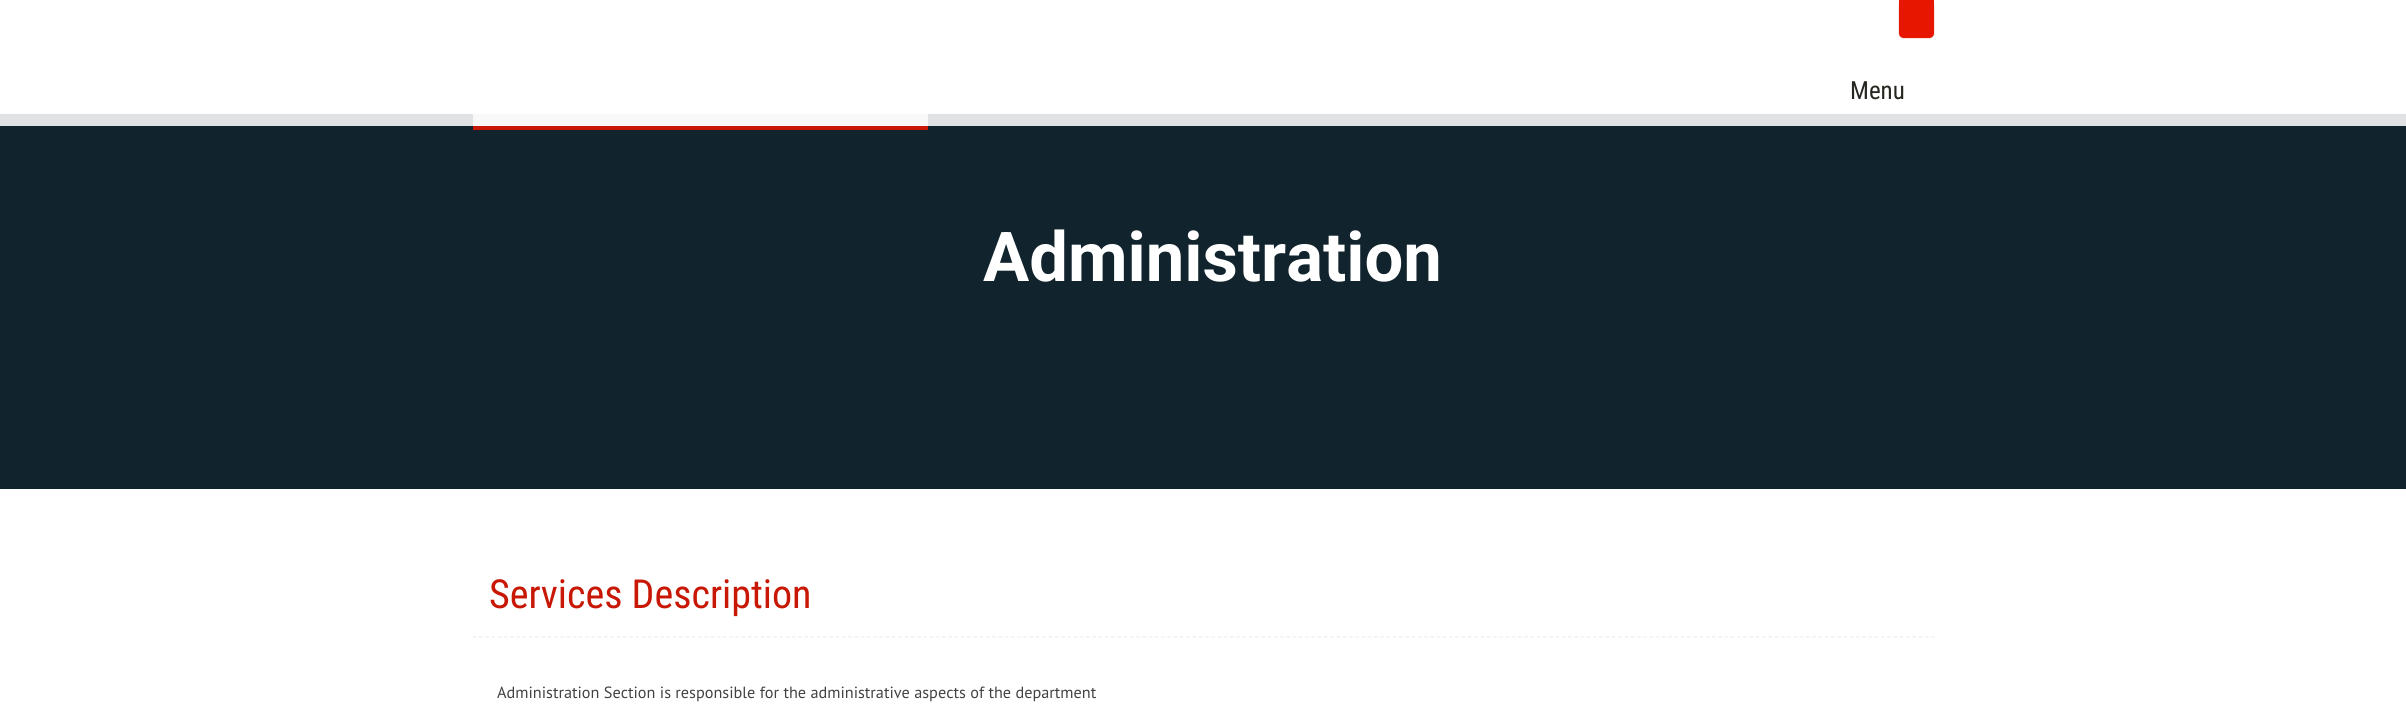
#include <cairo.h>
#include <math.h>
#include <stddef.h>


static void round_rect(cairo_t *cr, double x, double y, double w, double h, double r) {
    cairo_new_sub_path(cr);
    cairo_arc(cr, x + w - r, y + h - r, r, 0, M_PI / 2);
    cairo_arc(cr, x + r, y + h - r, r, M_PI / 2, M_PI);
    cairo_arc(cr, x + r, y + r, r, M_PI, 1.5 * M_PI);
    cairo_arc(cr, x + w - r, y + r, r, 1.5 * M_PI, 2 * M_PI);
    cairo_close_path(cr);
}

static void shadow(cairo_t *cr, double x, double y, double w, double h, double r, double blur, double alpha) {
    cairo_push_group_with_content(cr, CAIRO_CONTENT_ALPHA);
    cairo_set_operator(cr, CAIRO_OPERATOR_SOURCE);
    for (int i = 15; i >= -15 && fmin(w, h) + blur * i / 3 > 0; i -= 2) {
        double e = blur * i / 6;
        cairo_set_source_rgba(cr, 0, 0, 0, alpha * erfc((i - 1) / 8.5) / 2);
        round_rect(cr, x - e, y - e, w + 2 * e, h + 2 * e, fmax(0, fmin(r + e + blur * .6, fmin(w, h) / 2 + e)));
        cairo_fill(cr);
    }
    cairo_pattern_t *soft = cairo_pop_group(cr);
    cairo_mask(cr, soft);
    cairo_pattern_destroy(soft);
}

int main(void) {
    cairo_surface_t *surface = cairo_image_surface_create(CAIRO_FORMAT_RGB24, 2406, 709);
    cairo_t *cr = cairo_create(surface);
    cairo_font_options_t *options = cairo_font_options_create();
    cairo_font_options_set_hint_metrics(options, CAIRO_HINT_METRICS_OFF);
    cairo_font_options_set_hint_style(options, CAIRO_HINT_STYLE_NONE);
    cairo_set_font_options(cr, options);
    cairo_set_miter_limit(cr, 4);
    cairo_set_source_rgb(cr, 1, 1, 1);
    cairo_paint(cr);
    cairo_set_source_rgb(cr, 0.875, 0.612, 0.576);
    shadow(cr, 1899, 0, 35, 38, 5, 0.5, 1);
    cairo_set_source_rgb(cr, 0.902, 0.086, 0.004);
    cairo_new_path(cr);
    cairo_move_to(cr, 1899, 0);
    cairo_line_to(cr, 1934, 0);
    cairo_line_to(cr, 1934, 33);
    cairo_curve_to(cr, 1934, 36, 1932, 38, 1929, 38);
    cairo_line_to(cr, 1904, 38);
    cairo_curve_to(cr, 1901, 38, 1899, 36, 1899, 33);
    cairo_close_path(cr);
    cairo_fill(cr);
    cairo_select_font_face(cr, "Roboto Condensed", CAIRO_FONT_SLANT_NORMAL, CAIRO_FONT_WEIGHT_NORMAL);
    cairo_set_font_size(cr, 25);
    cairo_set_source_rgb(cr, 0.153, 0.149, 0.129);
    cairo_move_to(cr, 1850, 99);
    cairo_show_text(cr, "Menu");
    cairo_set_source_rgb(cr, 0.067, 0.137, 0.173);
    cairo_rectangle(cr, 0, 126, 2406, 363);
    cairo_fill(cr);
    cairo_set_source_rgb(cr, 0.784, 0.09, 0.016);
    cairo_rectangle(cr, 473, 126, 455, 4);
    cairo_fill(cr);
    cairo_set_source_rgb(cr, 0.878, 0.886, 0.894);
    cairo_rectangle(cr, 0, 114, 2406, 12);
    cairo_fill(cr);
    cairo_set_source_rgb(cr, 0.969, 0.969, 0.973);
    cairo_rectangle(cr, 473, 114, 455, 12);
    cairo_fill(cr);
    cairo_select_font_face(cr, "Roboto", CAIRO_FONT_SLANT_NORMAL, CAIRO_FONT_WEIGHT_BOLD);
    cairo_set_font_size(cr, 68.75);
    cairo_set_source_rgb(cr, 1, 1, 1);
    cairo_move_to(cr, 983, 281);
    cairo_show_text(cr, "Administration");
    cairo_select_font_face(cr, "Roboto Condensed", CAIRO_FONT_SLANT_NORMAL, CAIRO_FONT_WEIGHT_NORMAL);
    cairo_set_font_size(cr, 40);
    cairo_set_source_rgb(cr, 0.784, 0.09, 0.016);
    cairo_move_to(cr, 489, 608);
    cairo_show_text(cr, "Services Description");
    cairo_new_path(cr);
    cairo_move_to(cr, 472.5, 637);
    cairo_line_to(cr, 1935, 637);
    cairo_set_source_rgb(cr, 0.937, 0.937, 0.937);
    cairo_set_line_width(cr, 1.2);
    cairo_set_dash(cr, (double[]){3.75, 2.51}, 2, 0);
    cairo_stroke(cr);
    cairo_select_font_face(cr, "PT Sans", CAIRO_FONT_SLANT_NORMAL, CAIRO_FONT_WEIGHT_NORMAL);
    cairo_set_font_size(cr, 16.25);
    cairo_set_source_rgb(cr, 0.259, 0.259, 0.259);
    cairo_move_to(cr, 497, 698);
    cairo_show_text(cr, "Administration Section is responsible for the administrative aspects of the department");
    cairo_surface_write_to_png(surface, "page.png");
    cairo_font_options_destroy(options);
    cairo_destroy(cr);
    cairo_surface_destroy(surface);
    return 0;
}
